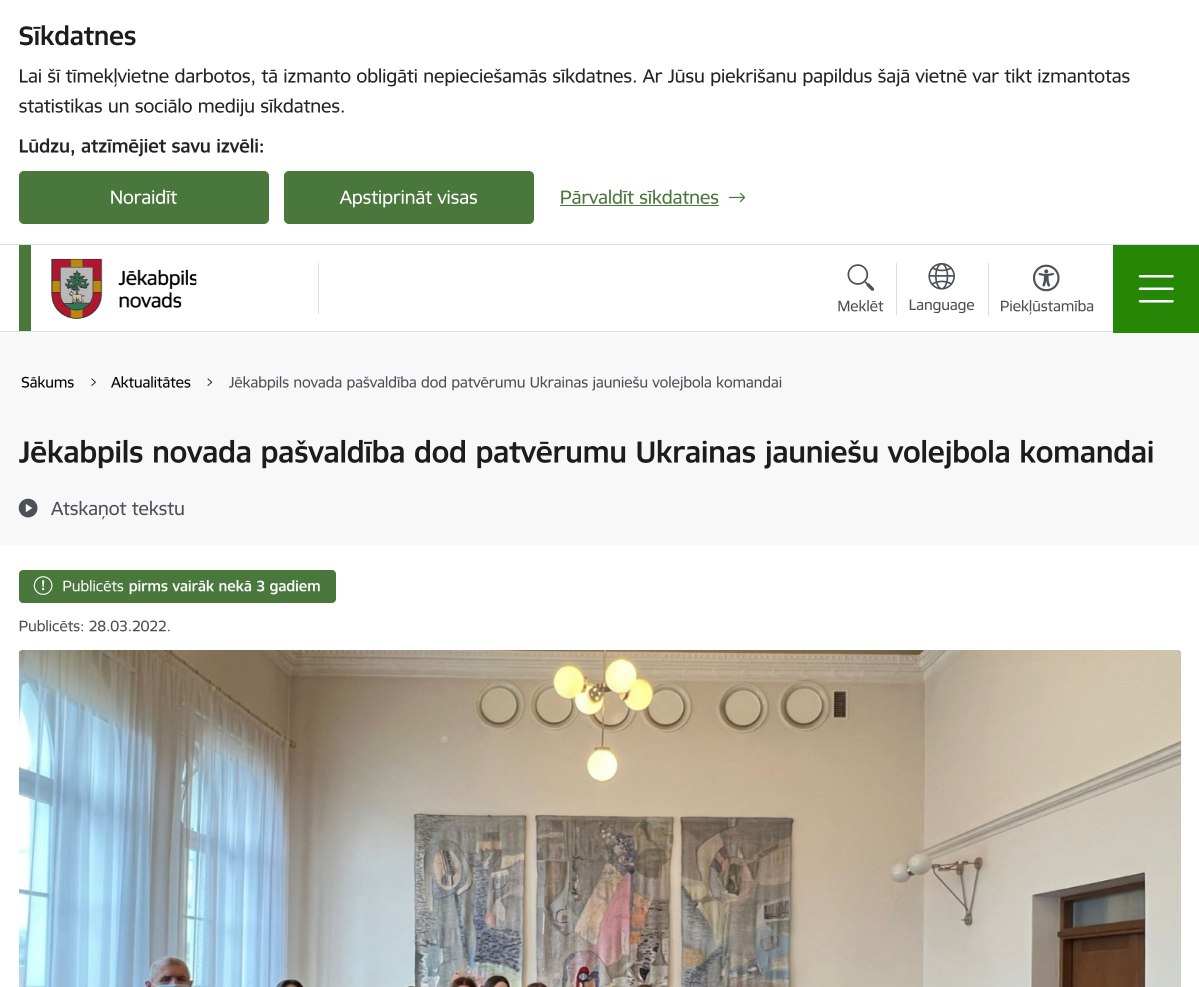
#include <cairo.h>
#include <math.h>
#include <stddef.h>


static void round_rect(cairo_t *cr, double x, double y, double w, double h, double r) {
    cairo_new_sub_path(cr);
    cairo_arc(cr, x + w - r, y + h - r, r, 0, M_PI / 2);
    cairo_arc(cr, x + r, y + h - r, r, M_PI / 2, M_PI);
    cairo_arc(cr, x + r, y + r, r, M_PI, 1.5 * M_PI);
    cairo_arc(cr, x + w - r, y + r, r, 1.5 * M_PI, 2 * M_PI);
    cairo_close_path(cr);
}

static void picture(cairo_t *cr, const char *path, double x, double y, double w, double h) {
    cairo_surface_t *image = cairo_image_surface_create_from_png(path);
    cairo_save(cr);
    cairo_set_source_surface(cr, image, x, y);
    cairo_rectangle(cr, x, y, w, h);
    cairo_fill(cr);
    cairo_restore(cr);
    cairo_surface_destroy(image);
}

int main(void) {
    cairo_surface_t *surface = cairo_image_surface_create(CAIRO_FORMAT_RGB24, 1199, 987);
    cairo_t *cr = cairo_create(surface);
    cairo_font_options_t *options = cairo_font_options_create();
    cairo_font_options_set_hint_metrics(options, CAIRO_HINT_METRICS_OFF);
    cairo_font_options_set_hint_style(options, CAIRO_HINT_STYLE_NONE);
    cairo_set_font_options(cr, options);
    cairo_set_miter_limit(cr, 4);
    cairo_set_source_rgb(cr, 1, 1, 1);
    cairo_paint(cr);
    cairo_set_source_rgb(cr, 0.859, 0.871, 0.894);
    cairo_rectangle(cr, 0, 244, 1199, 1);
    cairo_fill(cr);
    picture(cr, "img1.png", 19, 25, 117, 21);
    picture(cr, "img2.png", 20, 68, 1110, 19);
    picture(cr, "img3.png", 19, 98, 325, 19);
    picture(cr, "img4.png", 19, 138, 244, 19);
    cairo_set_source_rgb(cr, 0.29, 0.467, 0.235);
    round_rect(cr, 19.5, 171.5, 249, 52, 4.5);
    cairo_fill_preserve(cr);
    cairo_set_line_width(cr, 1);
    cairo_stroke(cr);
    picture(cr, "img5.png", 111, 189, 67, 15);
    round_rect(cr, 284.5, 171.5, 249, 52, 4.5);
    cairo_fill_preserve(cr);
    cairo_stroke(cr);
    picture(cr, "img6.png", 339, 190, 138, 18);
    picture(cr, "img7.png", 561, 189, 158, 15);
    picture(cr, "img8.png", 728, 192, 18, 11);
    cairo_rectangle(cr, 560, 205, 159, 1);
    cairo_fill(cr);
    cairo_set_source_rgb(cr, 0.859, 0.871, 0.894);
    cairo_rectangle(cr, 0, 331, 1113, 1);
    cairo_fill(cr);
    cairo_set_source_rgb(cr, 0.29, 0.467, 0.235);
    cairo_rectangle(cr, 19, 245, 12, 86);
    cairo_fill(cr);
    picture(cr, "img9.png", 51, 258, 146, 61);
    cairo_set_source_rgb(cr, 0.859, 0.871, 0.894);
    cairo_rectangle(cr, 318, 263, 1, 51);
    cairo_fill(cr);
    picture(cr, "img10.png", 847, 264, 28, 27);
    picture(cr, "img11.png", 838, 300, 46, 12);
    cairo_rectangle(cr, 896, 263, 1, 52);
    cairo_fill(cr);
    picture(cr, "img12.png", 928, 263, 27, 27);
    picture(cr, "img13.png", 909, 299, 66, 15);
    cairo_rectangle(cr, 988, 263, 1, 53);
    cairo_fill(cr);
    picture(cr, "img14.png", 1032, 264, 28, 28);
    picture(cr, "img15.png", 1001, 300, 93, 15);
    cairo_set_source_rgb(cr, 0.149, 0.529, 0.027);
    cairo_rectangle(cr, 1113, 245, 86, 88);
    cairo_fill(cr);
    picture(cr, "img16.png", 1138, 275, 36, 28);
    cairo_set_source_rgb(cr, 0.969, 0.969, 0.969);
    cairo_rectangle(cr, 0, 333, 1199, 212);
    cairo_fill(cr);
    picture(cr, "img17.png", 21, 376, 53, 12);
    picture(cr, "img18.png", 91, 378, 5, 8);
    picture(cr, "img19.png", 111, 376, 80, 12);
    picture(cr, "img20.png", 207, 378, 6, 8);
    picture(cr, "img21.png", 229, 376, 553, 15);
    picture(cr, "img22.png", 19, 439, 1134, 30);
    picture(cr, "img23.png", 18, 498, 20, 20);
    picture(cr, "img24.png", 51, 500, 133, 20);
    cairo_set_source_rgb(cr, 0.29, 0.467, 0.235);
    round_rect(cr, 19, 570, 317, 33, 4);
    cairo_fill(cr);
    picture(cr, "img25.png", 33, 576, 20, 19);
    picture(cr, "img26.png", 63, 580, 61, 12);
    picture(cr, "img27.png", 129, 580, 191, 15);
    picture(cr, "img28.png", 19, 620, 151, 12);
    picture(cr, "img29.png", 18, 650, 1164, 337);
    cairo_surface_write_to_png(surface, "page.png");
    cairo_font_options_destroy(options);
    cairo_destroy(cr);
    cairo_surface_destroy(surface);
    return 0;
}
